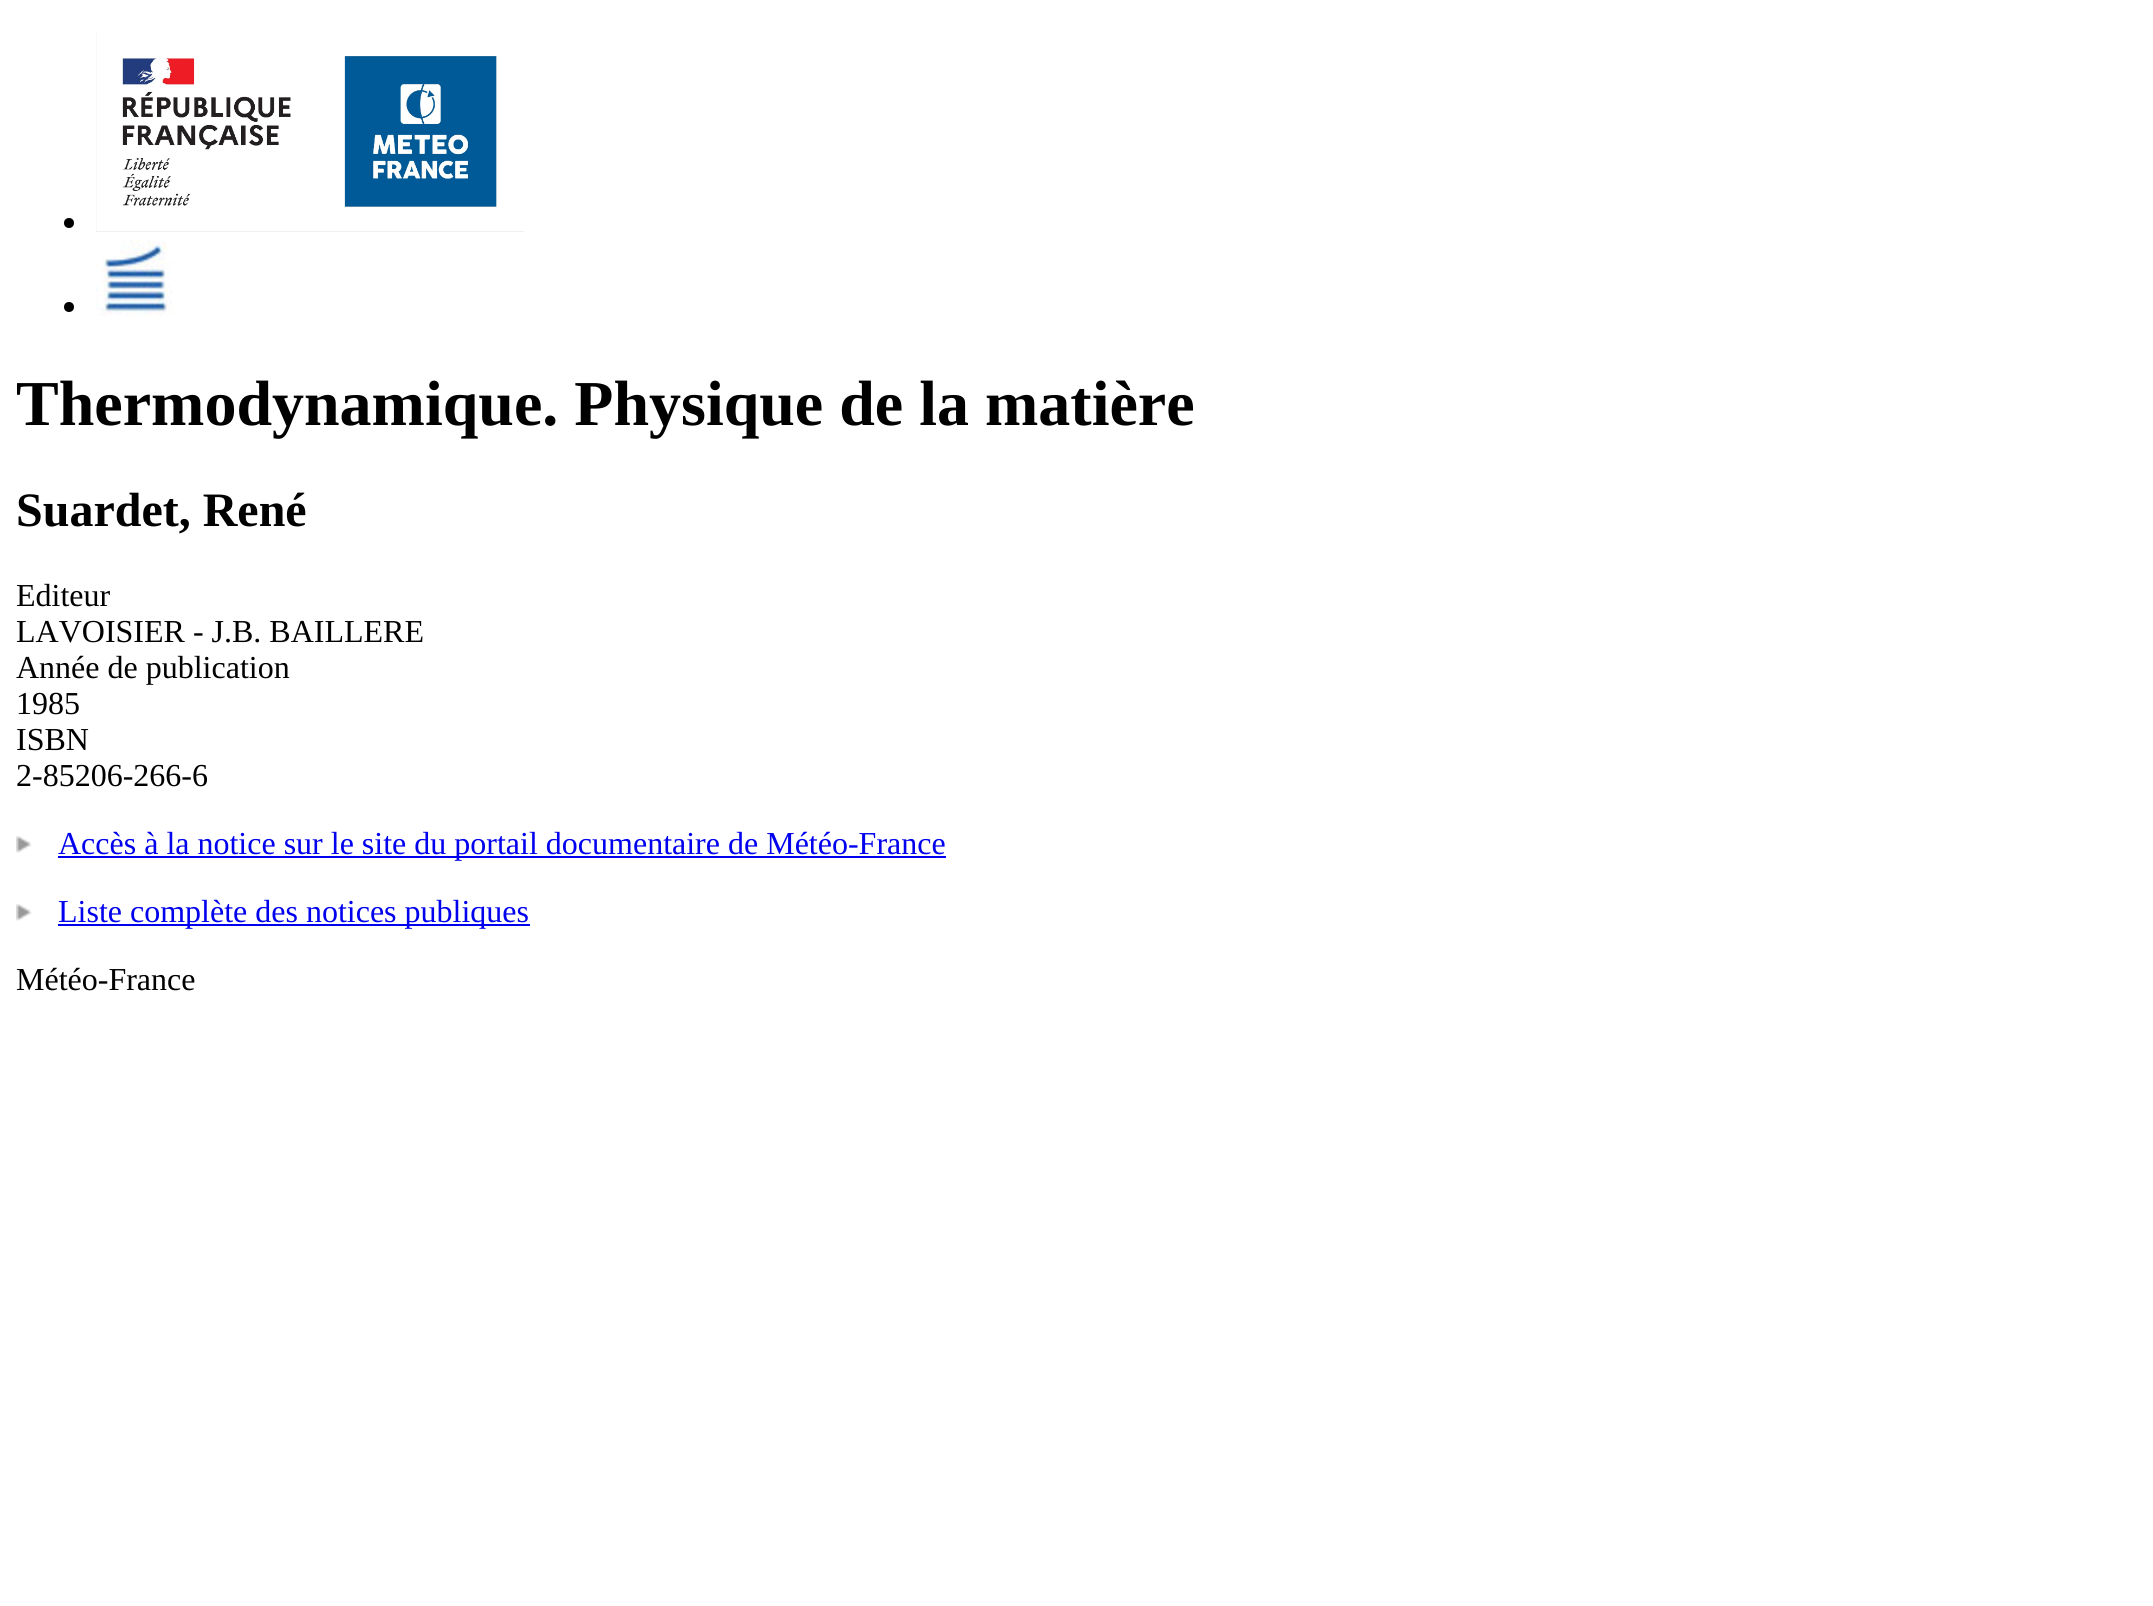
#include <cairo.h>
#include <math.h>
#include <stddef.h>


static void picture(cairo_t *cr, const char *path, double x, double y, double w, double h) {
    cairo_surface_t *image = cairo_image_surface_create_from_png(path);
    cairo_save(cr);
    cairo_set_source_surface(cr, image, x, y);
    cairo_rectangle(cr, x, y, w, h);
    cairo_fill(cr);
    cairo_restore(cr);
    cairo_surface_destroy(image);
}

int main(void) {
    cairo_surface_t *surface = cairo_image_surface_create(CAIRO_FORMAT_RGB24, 2153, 1606);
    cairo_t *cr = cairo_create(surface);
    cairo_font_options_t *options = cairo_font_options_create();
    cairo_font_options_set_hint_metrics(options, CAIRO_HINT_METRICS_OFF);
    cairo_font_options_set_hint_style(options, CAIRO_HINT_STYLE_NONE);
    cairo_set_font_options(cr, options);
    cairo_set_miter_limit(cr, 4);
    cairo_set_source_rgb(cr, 1, 1, 1);
    cairo_paint(cr);
    cairo_set_source_rgb(cr, 0, 0, 0);
    cairo_arc(cr, 69, 223, 5, 0, 2 * M_PI);
    cairo_fill(cr);
    picture(cr, "img1.png", 96, 32, 428, 200);
    cairo_arc(cr, 69, 307, 5, 0, 2 * M_PI);
    cairo_fill(cr);
    picture(cr, "img2.png", 96, 240, 76, 76);
    cairo_select_font_face(cr, "Liberation Serif", CAIRO_FONT_SLANT_NORMAL, CAIRO_FONT_WEIGHT_BOLD);
    cairo_set_font_size(cr, 64);
    cairo_move_to(cr, 16, 425);
    cairo_show_text(cr, "Thermodynamique. Physique de la matière");
    cairo_set_font_size(cr, 48);
    cairo_move_to(cr, 16, 526);
    cairo_show_text(cr, "Suardet, René");
    cairo_select_font_face(cr, "Liberation Serif", CAIRO_FONT_SLANT_NORMAL, CAIRO_FONT_WEIGHT_NORMAL);
    cairo_set_font_size(cr, 32);
    cairo_move_to(cr, 16, 606);
    cairo_show_text(cr, "Editeur");
    cairo_move_to(cr, 16, 642);
    cairo_show_text(cr, "LAVOISIER - J.B. BAILLERE");
    cairo_move_to(cr, 16, 678);
    cairo_show_text(cr, "Année de publication");
    cairo_move_to(cr, 16, 714);
    cairo_show_text(cr, "1985");
    cairo_move_to(cr, 16, 750);
    cairo_show_text(cr, "ISBN");
    cairo_move_to(cr, 16, 786);
    cairo_show_text(cr, "2-85206-266-6");
    picture(cr, "img3.png", 16, 836, 16, 17);
    cairo_set_source_rgb(cr, 0, 0, 0.933);
    cairo_rectangle(cr, 58, 856, 888, 2);
    cairo_fill(cr);
    cairo_move_to(cr, 58, 854);
    cairo_show_text(cr, "Accès à la notice sur le site du portail documentaire de Météo-France");
    picture(cr, "img3.png", 16, 904, 16, 17);
    cairo_rectangle(cr, 58, 924, 472, 2);
    cairo_fill(cr);
    cairo_move_to(cr, 58, 922);
    cairo_show_text(cr, "Liste complète des notices publiques");
    cairo_set_source_rgb(cr, 0, 0, 0);
    cairo_move_to(cr, 16, 990);
    cairo_show_text(cr, "Météo-France");
    cairo_surface_write_to_png(surface, "page.png");
    cairo_font_options_destroy(options);
    cairo_destroy(cr);
    cairo_surface_destroy(surface);
    return 0;
}
